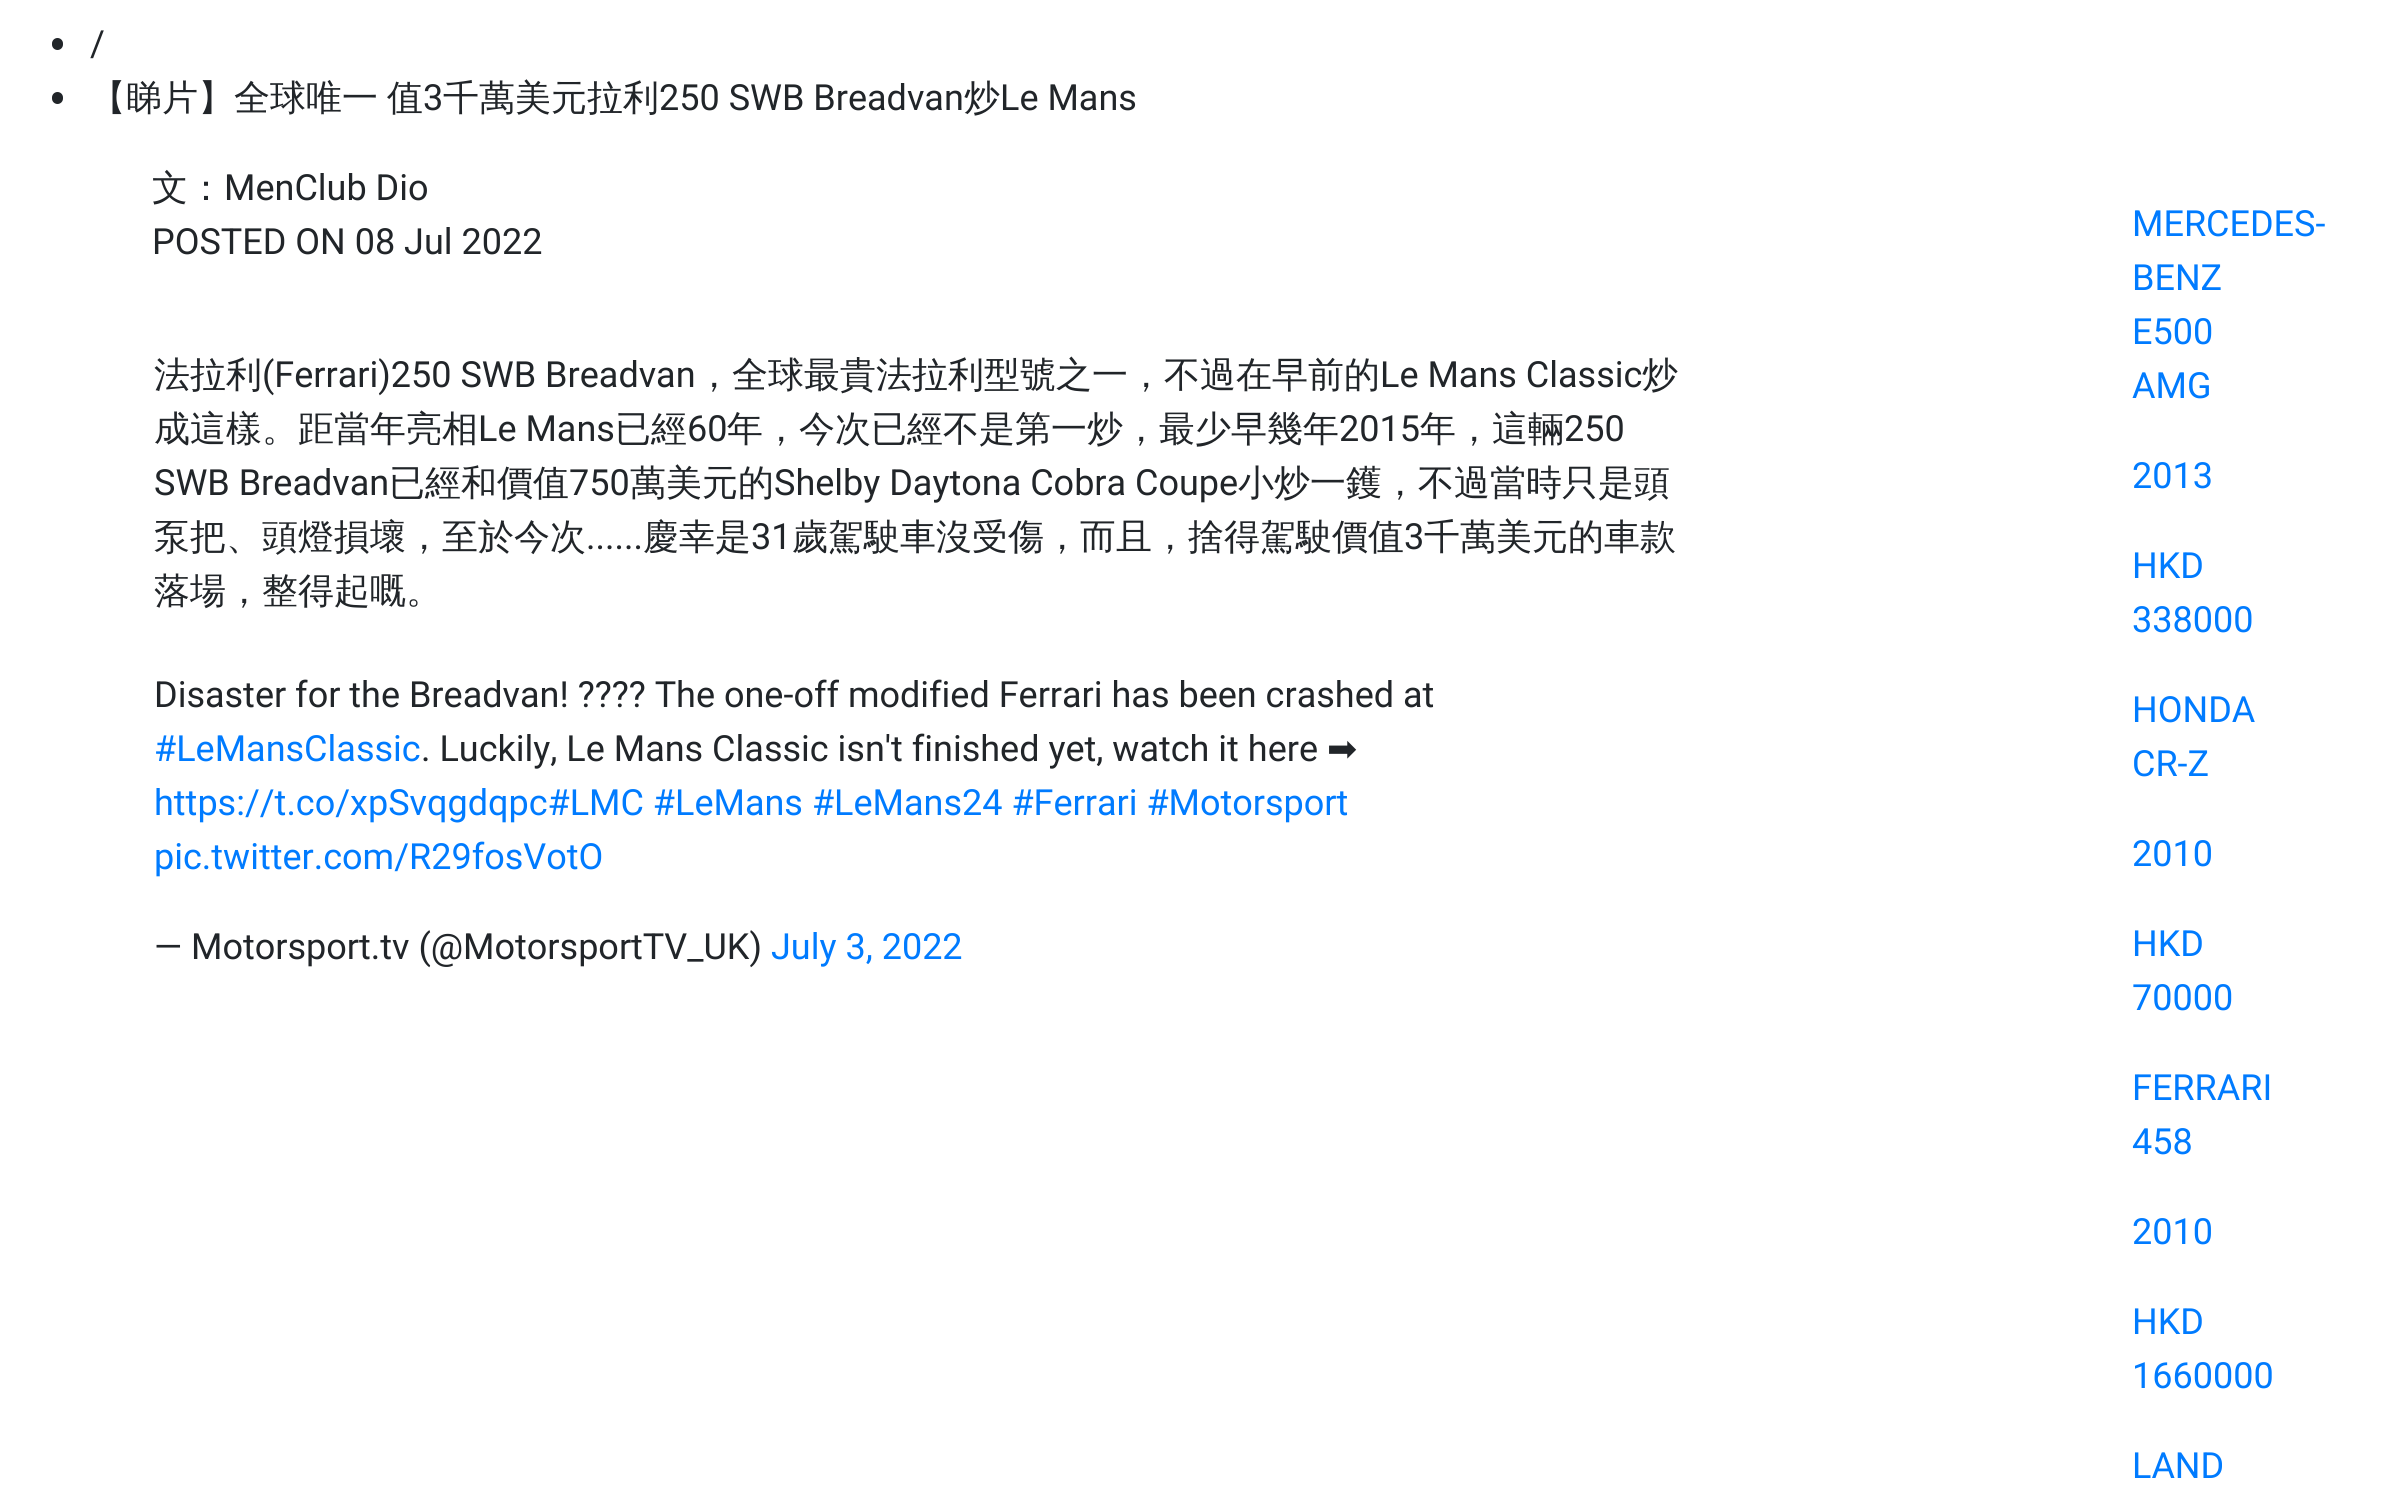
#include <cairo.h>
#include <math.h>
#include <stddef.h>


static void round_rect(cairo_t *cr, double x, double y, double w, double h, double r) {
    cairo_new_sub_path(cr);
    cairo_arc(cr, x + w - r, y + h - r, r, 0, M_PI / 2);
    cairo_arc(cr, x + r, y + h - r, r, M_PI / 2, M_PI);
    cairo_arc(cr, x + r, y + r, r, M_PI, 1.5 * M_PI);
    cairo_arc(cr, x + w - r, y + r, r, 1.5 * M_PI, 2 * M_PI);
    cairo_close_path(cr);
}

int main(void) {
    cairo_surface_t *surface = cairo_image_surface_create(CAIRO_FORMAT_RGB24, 2396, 1507);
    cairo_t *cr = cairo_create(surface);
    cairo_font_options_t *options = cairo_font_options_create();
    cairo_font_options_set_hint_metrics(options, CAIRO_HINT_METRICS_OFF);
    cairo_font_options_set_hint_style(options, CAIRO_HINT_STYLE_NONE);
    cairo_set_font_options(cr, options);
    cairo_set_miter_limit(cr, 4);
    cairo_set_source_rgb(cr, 1, 1, 1);
    cairo_paint(cr);
    cairo_set_source_rgb(cr, 0.129, 0.145, 0.161);
    round_rect(cr, 52, 38, 11, 12, 5.5);
    cairo_fill(cr);
    cairo_select_font_face(cr, "Roboto", CAIRO_FONT_SLANT_NORMAL, CAIRO_FONT_WEIGHT_NORMAL);
    cairo_set_font_size(cr, 36);
    cairo_move_to(cr, 90, 56);
    cairo_show_text(cr, "/");
    round_rect(cr, 52, 92, 11, 12, 5.5);
    cairo_fill(cr);
    cairo_select_font_face(cr, "WenQuanYi Zen Hei Medium", CAIRO_FONT_SLANT_NORMAL, CAIRO_FONT_WEIGHT_NORMAL);
    cairo_move_to(cr, 90, 110);
    cairo_show_text(cr, "【睇片】全球唯一");
    cairo_move_to(cr, 387, 110);
    cairo_show_text(cr, "值");
    cairo_select_font_face(cr, "Roboto", CAIRO_FONT_SLANT_NORMAL, CAIRO_FONT_WEIGHT_NORMAL);
    cairo_move_to(cr, 423, 110);
    cairo_show_text(cr, "3");
    cairo_select_font_face(cr, "WenQuanYi Zen Hei Medium", CAIRO_FONT_SLANT_NORMAL, CAIRO_FONT_WEIGHT_NORMAL);
    cairo_move_to(cr, 443, 110);
    cairo_show_text(cr, "千萬美元拉利");
    cairo_select_font_face(cr, "Roboto", CAIRO_FONT_SLANT_NORMAL, CAIRO_FONT_WEIGHT_NORMAL);
    cairo_move_to(cr, 659, 110);
    cairo_show_text(cr, "250 SWB Breadvan");
    cairo_select_font_face(cr, "WenQuanYi Zen Hei Medium", CAIRO_FONT_SLANT_NORMAL, CAIRO_FONT_WEIGHT_NORMAL);
    cairo_move_to(cr, 964, 110);
    cairo_show_text(cr, "炒");
    cairo_select_font_face(cr, "Roboto", CAIRO_FONT_SLANT_NORMAL, CAIRO_FONT_WEIGHT_NORMAL);
    cairo_move_to(cr, 1000, 110);
    cairo_show_text(cr, "Le Mans");
    cairo_select_font_face(cr, "WenQuanYi Zen Hei Medium", CAIRO_FONT_SLANT_NORMAL, CAIRO_FONT_WEIGHT_NORMAL);
    cairo_move_to(cr, 152, 200);
    cairo_show_text(cr, "文：");
    cairo_select_font_face(cr, "Roboto", CAIRO_FONT_SLANT_NORMAL, CAIRO_FONT_WEIGHT_NORMAL);
    cairo_move_to(cr, 224, 200);
    cairo_show_text(cr, "MenClub Dio");
    cairo_move_to(cr, 152, 254);
    cairo_show_text(cr, "POSTED ON 08 Jul 2022");
    cairo_select_font_face(cr, "WenQuanYi Zen Hei Medium", CAIRO_FONT_SLANT_NORMAL, CAIRO_FONT_WEIGHT_NORMAL);
    cairo_move_to(cr, 154, 387);
    cairo_show_text(cr, "法拉利");
    cairo_select_font_face(cr, "Roboto", CAIRO_FONT_SLANT_NORMAL, CAIRO_FONT_WEIGHT_NORMAL);
    cairo_move_to(cr, 262, 387);
    cairo_show_text(cr, "(Ferrari)250 SWB Breadvan");
    cairo_select_font_face(cr, "WenQuanYi Zen Hei Medium", CAIRO_FONT_SLANT_NORMAL, CAIRO_FONT_WEIGHT_NORMAL);
    cairo_move_to(cr, 696, 387);
    cairo_show_text(cr, "，全球最貴法拉利型號之一，不過在早前的");
    cairo_select_font_face(cr, "Roboto", CAIRO_FONT_SLANT_NORMAL, CAIRO_FONT_WEIGHT_NORMAL);
    cairo_move_to(cr, 1380, 387);
    cairo_show_text(cr, "Le Mans Classic");
    cairo_select_font_face(cr, "WenQuanYi Zen Hei Medium", CAIRO_FONT_SLANT_NORMAL, CAIRO_FONT_WEIGHT_NORMAL);
    cairo_move_to(cr, 1642, 387);
    cairo_show_text(cr, "炒");
    cairo_move_to(cr, 154, 441);
    cairo_show_text(cr, "成這樣。距當年亮相");
    cairo_select_font_face(cr, "Roboto", CAIRO_FONT_SLANT_NORMAL, CAIRO_FONT_WEIGHT_NORMAL);
    cairo_move_to(cr, 478, 441);
    cairo_show_text(cr, "Le Mans");
    cairo_select_font_face(cr, "WenQuanYi Zen Hei Medium", CAIRO_FONT_SLANT_NORMAL, CAIRO_FONT_WEIGHT_NORMAL);
    cairo_move_to(cr, 615, 441);
    cairo_show_text(cr, "已經");
    cairo_select_font_face(cr, "Roboto", CAIRO_FONT_SLANT_NORMAL, CAIRO_FONT_WEIGHT_NORMAL);
    cairo_move_to(cr, 687, 441);
    cairo_show_text(cr, "60");
    cairo_select_font_face(cr, "WenQuanYi Zen Hei Medium", CAIRO_FONT_SLANT_NORMAL, CAIRO_FONT_WEIGHT_NORMAL);
    cairo_move_to(cr, 727, 441);
    cairo_show_text(cr, "年，今次已經不是第一炒，最少早幾年");
    cairo_select_font_face(cr, "Roboto", CAIRO_FONT_SLANT_NORMAL, CAIRO_FONT_WEIGHT_NORMAL);
    cairo_move_to(cr, 1339, 441);
    cairo_show_text(cr, "2015");
    cairo_select_font_face(cr, "WenQuanYi Zen Hei Medium", CAIRO_FONT_SLANT_NORMAL, CAIRO_FONT_WEIGHT_NORMAL);
    cairo_move_to(cr, 1420, 441);
    cairo_show_text(cr, "年，這輛");
    cairo_select_font_face(cr, "Roboto", CAIRO_FONT_SLANT_NORMAL, CAIRO_FONT_WEIGHT_NORMAL);
    cairo_move_to(cr, 1564, 441);
    cairo_show_text(cr, "250");
    cairo_move_to(cr, 154, 495);
    cairo_show_text(cr, "SWB Breadvan");
    cairo_select_font_face(cr, "WenQuanYi Zen Hei Medium", CAIRO_FONT_SLANT_NORMAL, CAIRO_FONT_WEIGHT_NORMAL);
    cairo_move_to(cr, 389, 495);
    cairo_show_text(cr, "已經和價值");
    cairo_select_font_face(cr, "Roboto", CAIRO_FONT_SLANT_NORMAL, CAIRO_FONT_WEIGHT_NORMAL);
    cairo_move_to(cr, 569, 495);
    cairo_show_text(cr, "750");
    cairo_select_font_face(cr, "WenQuanYi Zen Hei Medium", CAIRO_FONT_SLANT_NORMAL, CAIRO_FONT_WEIGHT_NORMAL);
    cairo_move_to(cr, 630, 495);
    cairo_show_text(cr, "萬美元的");
    cairo_select_font_face(cr, "Roboto", CAIRO_FONT_SLANT_NORMAL, CAIRO_FONT_WEIGHT_NORMAL);
    cairo_move_to(cr, 774, 495);
    cairo_show_text(cr, "Shelby Daytona Cobra Coupe");
    cairo_select_font_face(cr, "WenQuanYi Zen Hei Medium", CAIRO_FONT_SLANT_NORMAL, CAIRO_FONT_WEIGHT_NORMAL);
    cairo_move_to(cr, 1238, 495);
    cairo_show_text(cr, "小炒一鑊，不過當時只是頭");
    cairo_move_to(cr, 154, 549);
    cairo_show_text(cr, "泵把、頭燈損壞，至於今次");
    cairo_select_font_face(cr, "Roboto", CAIRO_FONT_SLANT_NORMAL, CAIRO_FONT_WEIGHT_NORMAL);
    cairo_move_to(cr, 586, 549);
    cairo_show_text(cr, "......");
    cairo_select_font_face(cr, "WenQuanYi Zen Hei Medium", CAIRO_FONT_SLANT_NORMAL, CAIRO_FONT_WEIGHT_NORMAL);
    cairo_move_to(cr, 643, 549);
    cairo_show_text(cr, "慶幸是");
    cairo_select_font_face(cr, "Roboto", CAIRO_FONT_SLANT_NORMAL, CAIRO_FONT_WEIGHT_NORMAL);
    cairo_move_to(cr, 751, 549);
    cairo_show_text(cr, "31");
    cairo_select_font_face(cr, "WenQuanYi Zen Hei Medium", CAIRO_FONT_SLANT_NORMAL, CAIRO_FONT_WEIGHT_NORMAL);
    cairo_move_to(cr, 792, 549);
    cairo_show_text(cr, "歲駕駛車沒受傷，而且，捨得駕駛價值");
    cairo_select_font_face(cr, "Roboto", CAIRO_FONT_SLANT_NORMAL, CAIRO_FONT_WEIGHT_NORMAL);
    cairo_move_to(cr, 1404, 549);
    cairo_show_text(cr, "3");
    cairo_select_font_face(cr, "WenQuanYi Zen Hei Medium", CAIRO_FONT_SLANT_NORMAL, CAIRO_FONT_WEIGHT_NORMAL);
    cairo_move_to(cr, 1424, 549);
    cairo_show_text(cr, "千萬美元的車款");
    cairo_move_to(cr, 154, 603);
    cairo_show_text(cr, "落場，整得起嘅。");
    cairo_select_font_face(cr, "Roboto", CAIRO_FONT_SLANT_NORMAL, CAIRO_FONT_WEIGHT_NORMAL);
    cairo_move_to(cr, 154, 707);
    cairo_show_text(cr, "Disaster for the Breadvan! ?\077?\077 The one-off modified Ferrari has been crashed at");
    cairo_set_source_rgb(cr, 0, 0.482, 1);
    cairo_move_to(cr, 154, 761);
    cairo_show_text(cr, "#LeMansClassic");
    cairo_set_source_rgb(cr, 0.129, 0.145, 0.161);
    cairo_move_to(cr, 421, 761);
    cairo_show_text(cr, ". Luckily, Le Mans Classic isn't finished yet, watch it here");
    cairo_select_font_face(cr, "DejaVu Sans", CAIRO_FONT_SLANT_NORMAL, CAIRO_FONT_WEIGHT_NORMAL);
    cairo_move_to(cr, 1327, 761);
    cairo_show_text(cr, "➡");
    cairo_select_font_face(cr, "Roboto", CAIRO_FONT_SLANT_NORMAL, CAIRO_FONT_WEIGHT_NORMAL);
    cairo_set_source_rgb(cr, 0, 0.482, 1);
    cairo_move_to(cr, 154, 815);
    cairo_show_text(cr, "https://t.co/xpSvqgdqpc#LMC #LeMans #LeMans24 #Ferrari #Motorsport");
    cairo_move_to(cr, 154, 869);
    cairo_show_text(cr, "pic.twitter.com/R29fosVotO");
    cairo_set_source_rgb(cr, 0.129, 0.145, 0.161);
    cairo_move_to(cr, 154, 959);
    cairo_show_text(cr, "— Motorsport.tv (@MotorsportTV_UK)");
    cairo_set_source_rgb(cr, 0, 0.482, 1);
    cairo_move_to(cr, 771, 959);
    cairo_show_text(cr, "July 3, 2022");
    cairo_move_to(cr, 2132, 236);
    cairo_show_text(cr, "MERCEDES-");
    cairo_move_to(cr, 2132, 290);
    cairo_show_text(cr, "BENZ");
    cairo_move_to(cr, 2132, 344);
    cairo_show_text(cr, "E500");
    cairo_move_to(cr, 2132, 398);
    cairo_show_text(cr, "AMG");
    cairo_move_to(cr, 2132, 488);
    cairo_show_text(cr, "2013");
    cairo_move_to(cr, 2132, 578);
    cairo_show_text(cr, "HKD");
    cairo_move_to(cr, 2132, 632);
    cairo_show_text(cr, "338000");
    cairo_move_to(cr, 2132, 722);
    cairo_show_text(cr, "HONDA");
    cairo_move_to(cr, 2132, 776);
    cairo_show_text(cr, "CR-Z");
    cairo_move_to(cr, 2132, 866);
    cairo_show_text(cr, "2010");
    cairo_move_to(cr, 2132, 956);
    cairo_show_text(cr, "HKD");
    cairo_move_to(cr, 2132, 1010);
    cairo_show_text(cr, "70000");
    cairo_move_to(cr, 2132, 1100);
    cairo_show_text(cr, "FERRARI");
    cairo_move_to(cr, 2132, 1154);
    cairo_show_text(cr, "458");
    cairo_move_to(cr, 2132, 1244);
    cairo_show_text(cr, "2010");
    cairo_move_to(cr, 2132, 1334);
    cairo_show_text(cr, "HKD");
    cairo_move_to(cr, 2132, 1388);
    cairo_show_text(cr, "1660000");
    cairo_move_to(cr, 2132, 1478);
    cairo_show_text(cr, "LAND");
    cairo_surface_write_to_png(surface, "page.png");
    cairo_font_options_destroy(options);
    cairo_destroy(cr);
    cairo_surface_destroy(surface);
    return 0;
}
